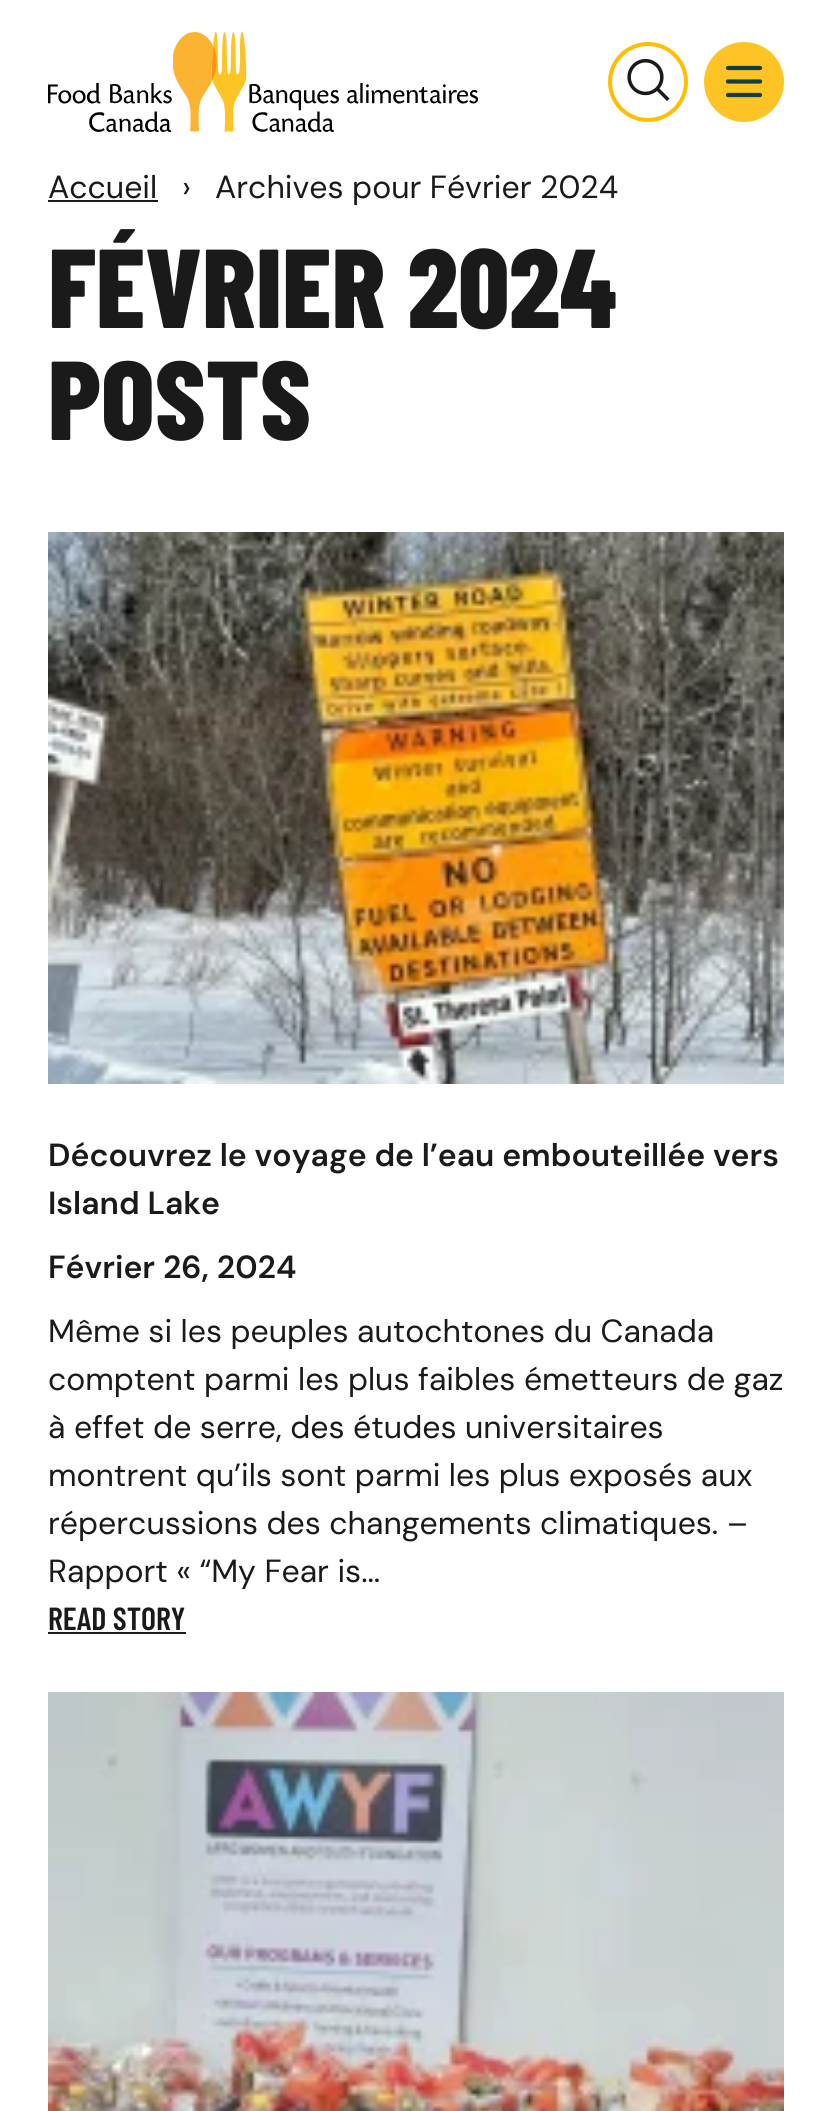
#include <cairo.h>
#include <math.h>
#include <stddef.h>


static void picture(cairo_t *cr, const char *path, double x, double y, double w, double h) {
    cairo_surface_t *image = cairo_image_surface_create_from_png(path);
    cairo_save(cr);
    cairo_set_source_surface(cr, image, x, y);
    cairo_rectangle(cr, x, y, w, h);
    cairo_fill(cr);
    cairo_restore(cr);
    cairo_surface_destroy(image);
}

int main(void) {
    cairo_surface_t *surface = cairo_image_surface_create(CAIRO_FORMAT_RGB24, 831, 2111);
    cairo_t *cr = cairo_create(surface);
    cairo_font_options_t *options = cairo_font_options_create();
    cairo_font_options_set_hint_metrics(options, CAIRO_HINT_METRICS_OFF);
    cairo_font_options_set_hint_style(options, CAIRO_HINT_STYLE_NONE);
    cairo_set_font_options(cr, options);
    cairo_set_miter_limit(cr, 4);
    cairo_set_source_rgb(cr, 1, 1, 1);
    cairo_paint(cr);
    picture(cr, "img1.png", 48, 32, 430, 100);
    cairo_arc(cr, 648, 82, 38, 0, 2 * M_PI);
    cairo_set_source_rgb(cr, 1, 0.745, 0);
    cairo_set_line_width(cr, 4);
    cairo_stroke(cr);
    picture(cr, "img2.png", 627, 59, 43, 42);
    cairo_set_source_rgb(cr, 0.996, 0.765, 0.145);
    cairo_arc(cr, 744, 82, 38, 0, 2 * M_PI);
    cairo_fill_preserve(cr);
    cairo_stroke(cr);
    cairo_new_path(cr);
    cairo_move_to(cr, 728, 68);
    cairo_line_to(cr, 760, 68);
    cairo_move_to(cr, 728, 81.5);
    cairo_line_to(cr, 760, 81.5);
    cairo_move_to(cr, 728, 95);
    cairo_line_to(cr, 760, 95);
    cairo_set_source_rgb(cr, 0.075, 0.243, 0.227);
    cairo_set_line_width(cr, 4.2);
    cairo_set_line_cap(cr, CAIRO_LINE_CAP_ROUND);
    cairo_stroke(cr);
    cairo_select_font_face(cr, "DM Sans", CAIRO_FONT_SLANT_NORMAL, CAIRO_FONT_WEIGHT_NORMAL);
    cairo_set_font_size(cr, 32);
    cairo_set_source_rgb(cr, 0.102, 0.102, 0.102);
    cairo_move_to(cr, 48, 198);
    cairo_show_text(cr, "Accueil");
    cairo_rectangle(cr, 48, 200, 110, 2);
    cairo_fill(cr);
    cairo_move_to(cr, 182, 198);
    cairo_show_text(cr, "›");
    cairo_move_to(cr, 215, 198);
    cairo_show_text(cr, "Archives pour Février 2024");
    cairo_select_font_face(cr, "Barlow Condensed ExtraBold", CAIRO_FONT_SLANT_NORMAL, CAIRO_FONT_WEIGHT_NORMAL);
    cairo_set_font_size(cr, 112);
    cairo_move_to(cr, 48, 328);
    cairo_show_text(cr, "FÉVRIER 2024");
    cairo_move_to(cr, 48, 440);
    cairo_show_text(cr, "POSTS");
    picture(cr, "img3.png", 48, 532, 736, 552);
    cairo_select_font_face(cr, "DM Sans SemiBold", CAIRO_FONT_SLANT_NORMAL, CAIRO_FONT_WEIGHT_NORMAL);
    cairo_set_font_size(cr, 32);
    cairo_move_to(cr, 48, 1166);
    cairo_show_text(cr, "Découvrez le voyage de l’eau embouteillée vers");
    cairo_move_to(cr, 48, 1214);
    cairo_show_text(cr, "Island Lake");
    cairo_move_to(cr, 48, 1278);
    cairo_show_text(cr, "Février 26, 2024");
    cairo_select_font_face(cr, "DM Sans", CAIRO_FONT_SLANT_NORMAL, CAIRO_FONT_WEIGHT_NORMAL);
    cairo_move_to(cr, 48, 1342);
    cairo_show_text(cr, "Même si les peuples autochtones du Canada");
    cairo_move_to(cr, 48, 1390);
    cairo_show_text(cr, "comptent parmi les plus faibles émetteurs de gaz");
    cairo_move_to(cr, 48, 1438);
    cairo_show_text(cr, "à effet de serre, des études universitaires");
    cairo_move_to(cr, 48, 1486);
    cairo_show_text(cr, "montrent qu’ils sont parmi les plus exposés aux");
    cairo_move_to(cr, 48, 1534);
    cairo_show_text(cr, "répercussions des changements climatiques. –");
    cairo_move_to(cr, 48, 1582);
    cairo_show_text(cr, "Rapport « “My Fear is...");
    cairo_select_font_face(cr, "Barlow Condensed SemiBold", CAIRO_FONT_SLANT_NORMAL, CAIRO_FONT_WEIGHT_NORMAL);
    cairo_move_to(cr, 48, 1630);
    cairo_show_text(cr, "READ STORY");
    cairo_rectangle(cr, 48, 1632, 138, 2);
    cairo_fill(cr);
    picture(cr, "img4.png", 48, 1692, 736, 419);
    cairo_surface_write_to_png(surface, "page.png");
    cairo_font_options_destroy(options);
    cairo_destroy(cr);
    cairo_surface_destroy(surface);
    return 0;
}
